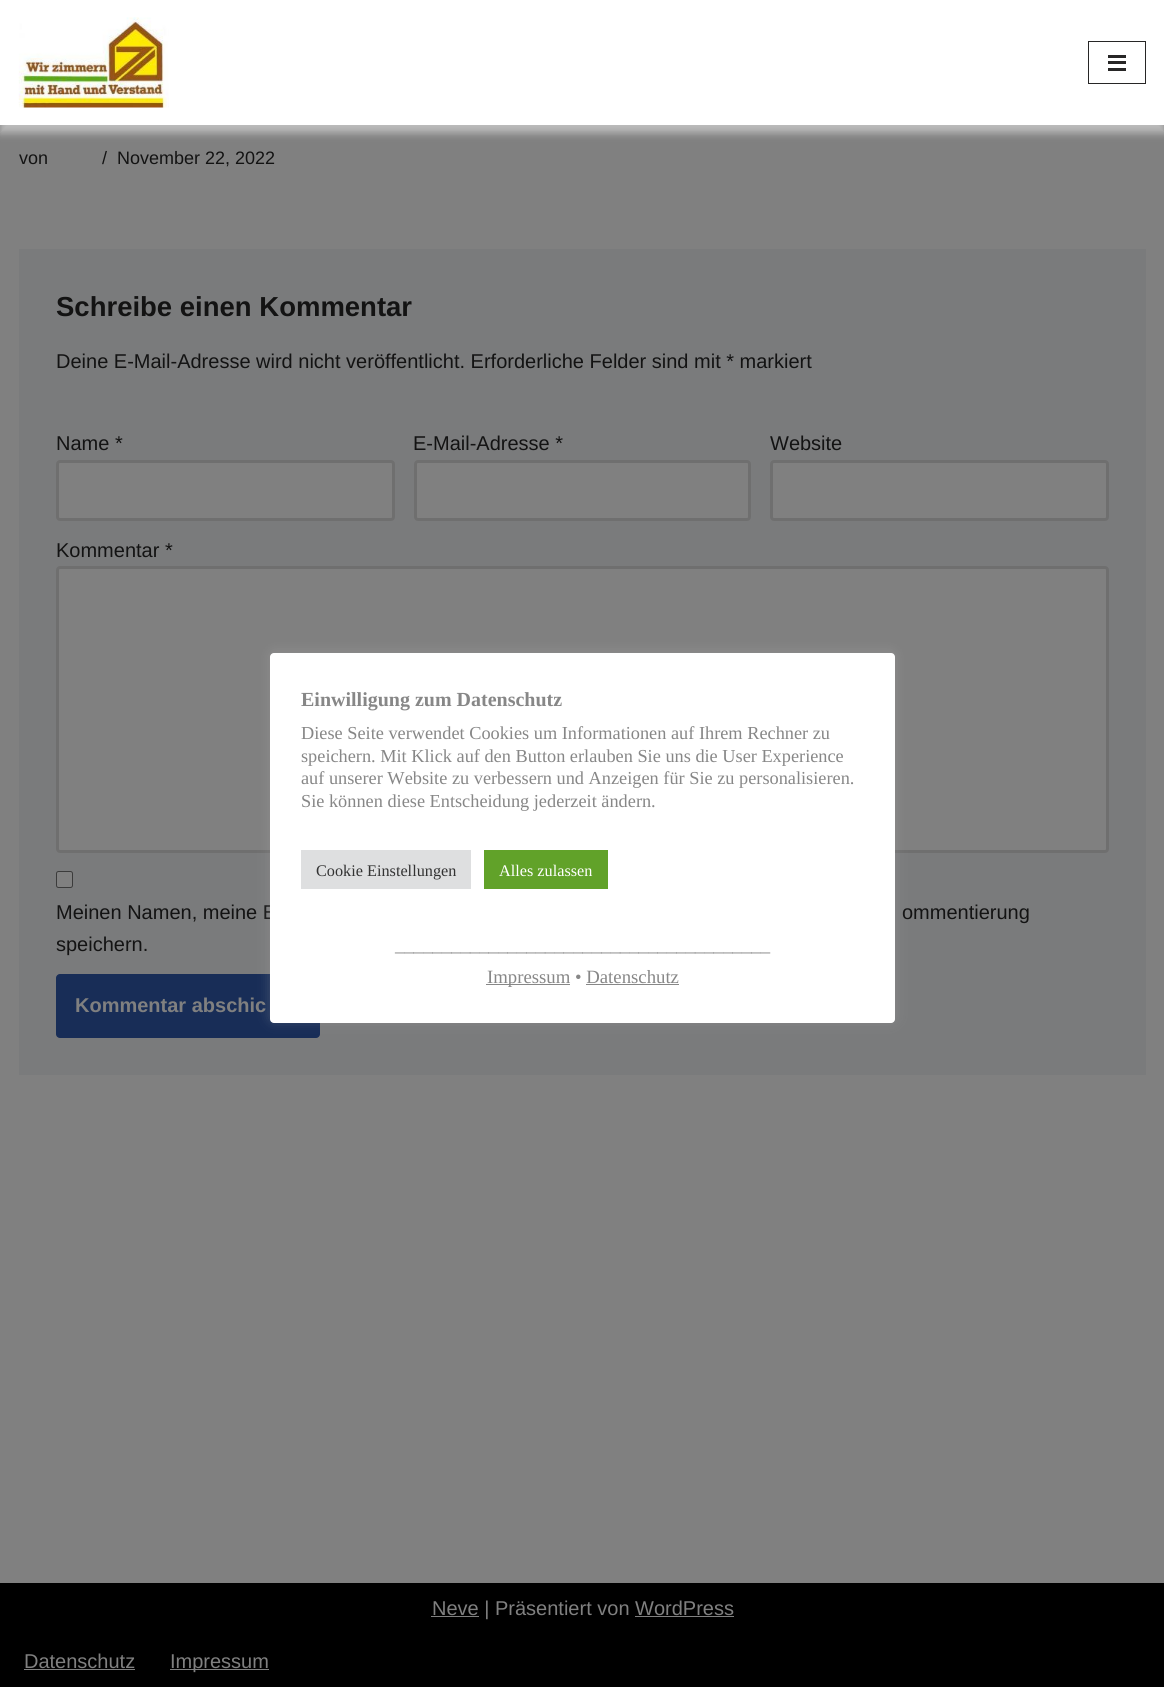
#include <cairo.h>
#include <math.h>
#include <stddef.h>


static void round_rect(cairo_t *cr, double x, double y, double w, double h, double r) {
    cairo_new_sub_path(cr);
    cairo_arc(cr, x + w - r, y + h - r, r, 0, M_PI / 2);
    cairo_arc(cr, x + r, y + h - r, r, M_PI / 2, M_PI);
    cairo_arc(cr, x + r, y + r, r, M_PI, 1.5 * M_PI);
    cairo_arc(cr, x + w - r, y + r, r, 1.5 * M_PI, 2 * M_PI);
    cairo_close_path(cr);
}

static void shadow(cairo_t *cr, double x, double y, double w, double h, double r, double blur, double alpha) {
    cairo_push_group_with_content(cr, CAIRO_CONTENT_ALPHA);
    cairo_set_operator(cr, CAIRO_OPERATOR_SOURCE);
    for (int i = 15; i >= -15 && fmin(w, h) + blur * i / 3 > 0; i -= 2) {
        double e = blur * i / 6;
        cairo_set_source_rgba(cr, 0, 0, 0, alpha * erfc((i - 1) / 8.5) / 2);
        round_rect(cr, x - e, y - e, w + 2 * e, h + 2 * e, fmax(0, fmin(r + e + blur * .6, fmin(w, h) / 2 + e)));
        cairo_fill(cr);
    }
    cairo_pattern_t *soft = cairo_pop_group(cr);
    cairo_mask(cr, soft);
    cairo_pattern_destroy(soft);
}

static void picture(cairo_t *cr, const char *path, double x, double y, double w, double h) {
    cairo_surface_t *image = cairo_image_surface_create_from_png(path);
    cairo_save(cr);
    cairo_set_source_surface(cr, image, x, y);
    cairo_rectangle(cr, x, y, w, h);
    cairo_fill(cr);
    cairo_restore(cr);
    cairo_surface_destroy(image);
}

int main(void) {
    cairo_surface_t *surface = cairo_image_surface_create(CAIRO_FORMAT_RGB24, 1164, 1687);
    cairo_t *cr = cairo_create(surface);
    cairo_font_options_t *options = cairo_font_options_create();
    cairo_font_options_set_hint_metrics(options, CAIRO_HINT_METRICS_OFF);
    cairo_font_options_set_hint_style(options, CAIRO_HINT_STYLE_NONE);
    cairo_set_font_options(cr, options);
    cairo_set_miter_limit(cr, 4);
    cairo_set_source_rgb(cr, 0.502, 0.502, 0.502);
    cairo_paint(cr);
    cairo_set_source_rgb(cr, 0.733, 0.733, 0.733);
    shadow(cr, 0, 8, 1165, 125, 0, 4, 1);
    cairo_set_source_rgb(cr, 1, 1, 1);
    cairo_rectangle(cr, 0, 0, 1164, 125);
    cairo_fill(cr);
    picture(cr, "img1.png", 18, 17, 151, 91);
    cairo_rectangle(cr, 1088.5, 41.5, 57, 42);
    cairo_set_source_rgb(cr, 0.153, 0.149, 0.149);
    cairo_set_line_width(cr, 1);
    cairo_stroke(cr);
    cairo_rectangle(cr, 1108, 55, 18, 3);
    cairo_fill(cr);
    cairo_rectangle(cr, 1108, 61, 18, 3);
    cairo_fill(cr);
    cairo_rectangle(cr, 1108, 68, 18, 3);
    cairo_fill(cr);
    cairo_select_font_face(cr, "Liberation Sans", CAIRO_FONT_SLANT_NORMAL, CAIRO_FONT_WEIGHT_NORMAL);
    cairo_set_font_size(cr, 18);
    cairo_set_source_rgb(cr, 0.078, 0.075, 0.075);
    cairo_move_to(cr, 19, 164);
    cairo_show_text(cr, "von");
    cairo_move_to(cr, 102, 164);
    cairo_show_text(cr, "/");
    cairo_move_to(cr, 117, 164);
    cairo_show_text(cr, "November 22, 2022");
    cairo_set_source_rgb(cr, 0.478, 0.482, 0.486);
    cairo_rectangle(cr, 19, 249, 1127, 826);
    cairo_fill(cr);
    cairo_select_font_face(cr, "Liberation Sans", CAIRO_FONT_SLANT_NORMAL, CAIRO_FONT_WEIGHT_BOLD);
    cairo_set_font_size(cr, 27.5);
    cairo_set_source_rgb(cr, 0.078, 0.075, 0.075);
    cairo_move_to(cr, 56, 316);
    cairo_show_text(cr, "Schreibe einen Kommentar");
    cairo_select_font_face(cr, "Liberation Sans", CAIRO_FONT_SLANT_NORMAL, CAIRO_FONT_WEIGHT_NORMAL);
    cairo_set_font_size(cr, 20);
    cairo_move_to(cr, 56, 368);
    cairo_show_text(cr, "Deine E-Mail-Adresse wird nicht veröffentlicht. Erforderliche Felder sind mit * markiert");
    cairo_move_to(cr, 56, 450);
    cairo_show_text(cr, "Name *");
    cairo_set_source_rgb(cr, 0.502, 0.502, 0.502);
    round_rect(cr, 57.5, 461.5, 336, 58, 2.5);
    cairo_fill_preserve(cr);
    cairo_set_source_rgb(cr, 0.435, 0.435, 0.435);
    cairo_set_line_width(cr, 3);
    cairo_stroke(cr);
    cairo_set_source_rgb(cr, 0.078, 0.075, 0.075);
    cairo_move_to(cr, 413, 450);
    cairo_show_text(cr, "E-Mail-Adresse *");
    cairo_set_source_rgb(cr, 0.502, 0.502, 0.502);
    round_rect(cr, 415.5, 461.5, 334, 58, 2.5);
    cairo_fill_preserve(cr);
    cairo_set_source_rgb(cr, 0.435, 0.435, 0.435);
    cairo_stroke(cr);
    cairo_set_source_rgb(cr, 0.078, 0.075, 0.075);
    cairo_move_to(cr, 770, 450);
    cairo_show_text(cr, "Website");
    cairo_set_source_rgb(cr, 0.502, 0.502, 0.502);
    round_rect(cr, 771.5, 461.5, 336, 58, 2.5);
    cairo_fill_preserve(cr);
    cairo_set_source_rgb(cr, 0.435, 0.435, 0.435);
    cairo_stroke(cr);
    cairo_set_source_rgb(cr, 0.078, 0.075, 0.075);
    cairo_move_to(cr, 56, 557);
    cairo_show_text(cr, "Kommentar *");
    cairo_set_source_rgb(cr, 0.502, 0.502, 0.502);
    round_rect(cr, 57.5, 567.5, 1050, 284, 2.5);
    cairo_fill_preserve(cr);
    cairo_set_source_rgb(cr, 0.435, 0.435, 0.435);
    cairo_stroke(cr);
    cairo_set_source_rgb(cr, 0.502, 0.502, 0.502);
    round_rect(cr, 56.5, 871.5, 16, 16, 2);
    cairo_fill_preserve(cr);
    cairo_set_source_rgb(cr, 0.231, 0.231, 0.231);
    cairo_set_line_width(cr, 1);
    cairo_stroke(cr);
    cairo_set_source_rgb(cr, 0.078, 0.075, 0.075);
    cairo_move_to(cr, 56, 919);
    cairo_show_text(cr, "Meinen Namen, meine E");
    cairo_move_to(cr, 902, 919);
    cairo_show_text(cr, "ommentierung");
    cairo_move_to(cr, 56, 951);
    cairo_show_text(cr, "speichern.");
    cairo_set_source_rgb(cr, 0.094, 0.176, 0.341);
    round_rect(cr, 56, 974, 264, 64, 4);
    cairo_fill(cr);
    cairo_select_font_face(cr, "Liberation Sans", CAIRO_FONT_SLANT_NORMAL, CAIRO_FONT_WEIGHT_BOLD);
    cairo_set_source_rgb(cr, 0.502, 0.502, 0.502);
    cairo_move_to(cr, 75, 1012);
    cairo_show_text(cr, "Kommentar abschic");
    cairo_set_source_rgb(cr, 0, 0, 0);
    cairo_rectangle(cr, 0, 1583, 1164, 104);
    cairo_fill(cr);
    cairo_set_source_rgb(cr, 0.502, 0.502, 0.502);
    cairo_rectangle(cr, 431, 1616, 48, 1);
    cairo_fill(cr);
    cairo_select_font_face(cr, "Liberation Sans", CAIRO_FONT_SLANT_NORMAL, CAIRO_FONT_WEIGHT_NORMAL);
    cairo_move_to(cr, 432, 1615);
    cairo_show_text(cr, "Neve | Präsentiert von WordPress");
    cairo_rectangle(cr, 635, 1616, 99, 1);
    cairo_fill(cr);
    cairo_move_to(cr, 24, 1668);
    cairo_show_text(cr, "Datenschutz");
    cairo_rectangle(cr, 24, 1669, 111, 1);
    cairo_fill(cr);
    cairo_rectangle(cr, 170, 1669, 99, 1);
    cairo_fill(cr);
    cairo_move_to(cr, 170, 1668);
    cairo_show_text(cr, "Impressum");
    cairo_set_source_rgb(cr, 0.675, 0.671, 0.671);
    shadow(cr, 270, 651, 625, 370, 4, 6, 0.3);
    cairo_set_source_rgb(cr, 1, 1, 1);
    round_rect(cr, 270, 653, 625, 370, 4);
    cairo_fill(cr);
    cairo_select_font_face(cr, "Liberation Serif", CAIRO_FONT_SLANT_NORMAL, CAIRO_FONT_WEIGHT_BOLD);
    cairo_set_source_rgb(cr, 0.529, 0.529, 0.529);
    cairo_move_to(cr, 301, 706);
    cairo_show_text(cr, "Einwilligung zum Datenschutz");
    cairo_select_font_face(cr, "Liberation Serif", CAIRO_FONT_SLANT_NORMAL, CAIRO_FONT_WEIGHT_NORMAL);
    cairo_set_font_size(cr, 18.3);
    cairo_move_to(cr, 301, 739);
    cairo_show_text(cr, "Diese Seite verwendet Cookies um Informationen auf Ihrem Rechner zu");
    cairo_move_to(cr, 301, 762);
    cairo_show_text(cr, "speichern. Mit Klick auf den Button erlauben Sie uns die User Experience");
    cairo_move_to(cr, 301, 784);
    cairo_show_text(cr, "auf unserer Website zu verbessern und Anzeigen für Sie zu personalisieren.");
    cairo_move_to(cr, 301, 807);
    cairo_show_text(cr, "Sie können diese Entscheidung jederzeit ändern.");
    cairo_set_source_rgb(cr, 0.871, 0.875, 0.878);
    cairo_rectangle(cr, 301, 850, 170, 39);
    cairo_fill(cr);
    cairo_set_font_size(cr, 16.25);
    cairo_set_source_rgb(cr, 0.2, 0.2, 0.2);
    cairo_move_to(cr, 316, 876);
    cairo_show_text(cr, "Cookie Einstellungen");
    cairo_set_source_rgb(cr, 0.38, 0.635, 0.161);
    cairo_rectangle(cr, 484, 850, 124, 39);
    cairo_fill(cr);
    cairo_set_source_rgb(cr, 1, 1, 1);
    cairo_move_to(cr, 499, 876);
    cairo_show_text(cr, "Alles zulassen");
    cairo_set_font_size(cr, 18.75);
    cairo_set_source_rgb(cr, 0.529, 0.529, 0.529);
    cairo_move_to(cr, 395, 951);
    cairo_show_text(cr, "________________________________________");
    cairo_rectangle(cr, 486, 984, 84, 1);
    cairo_fill(cr);
    cairo_move_to(cr, 487, 983);
    cairo_show_text(cr, "Impressum • Datenschutz");
    cairo_rectangle(cr, 586, 984, 93, 1);
    cairo_fill(cr);
    cairo_surface_write_to_png(surface, "page.png");
    cairo_font_options_destroy(options);
    cairo_destroy(cr);
    cairo_surface_destroy(surface);
    return 0;
}
